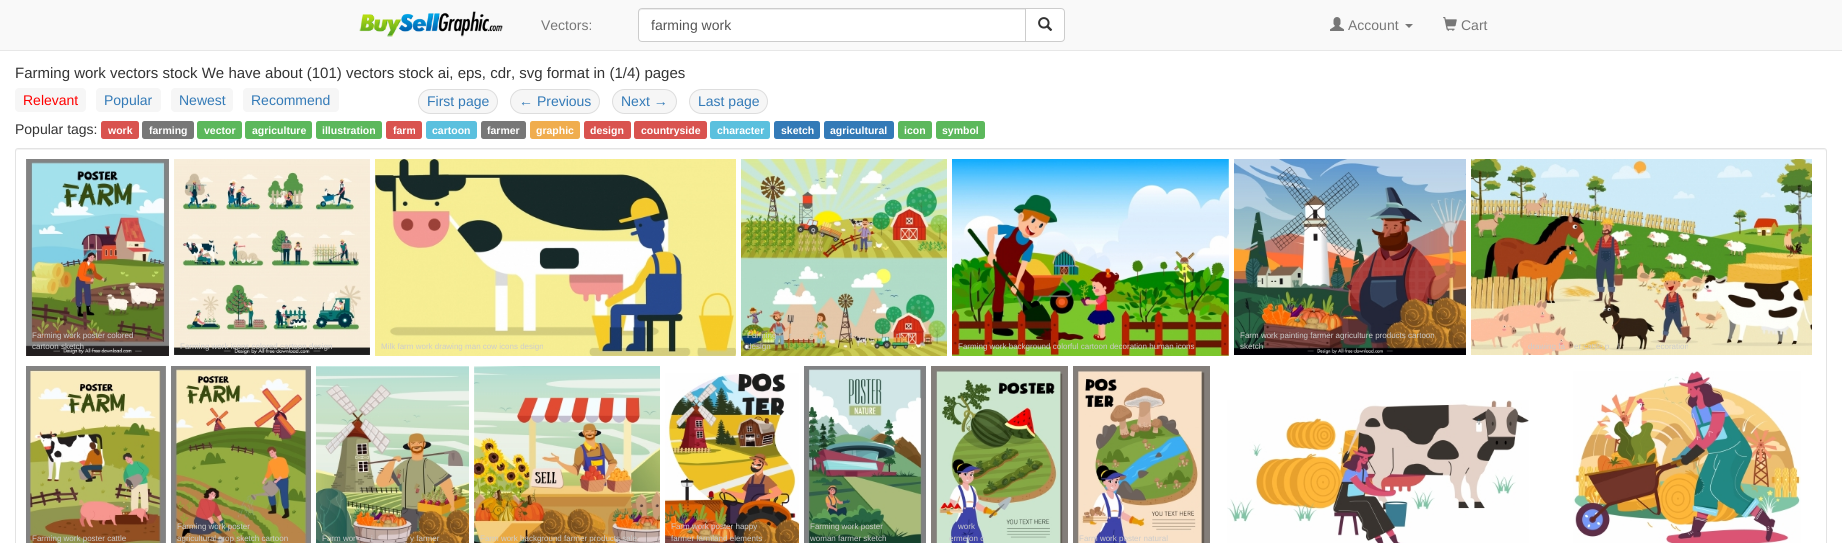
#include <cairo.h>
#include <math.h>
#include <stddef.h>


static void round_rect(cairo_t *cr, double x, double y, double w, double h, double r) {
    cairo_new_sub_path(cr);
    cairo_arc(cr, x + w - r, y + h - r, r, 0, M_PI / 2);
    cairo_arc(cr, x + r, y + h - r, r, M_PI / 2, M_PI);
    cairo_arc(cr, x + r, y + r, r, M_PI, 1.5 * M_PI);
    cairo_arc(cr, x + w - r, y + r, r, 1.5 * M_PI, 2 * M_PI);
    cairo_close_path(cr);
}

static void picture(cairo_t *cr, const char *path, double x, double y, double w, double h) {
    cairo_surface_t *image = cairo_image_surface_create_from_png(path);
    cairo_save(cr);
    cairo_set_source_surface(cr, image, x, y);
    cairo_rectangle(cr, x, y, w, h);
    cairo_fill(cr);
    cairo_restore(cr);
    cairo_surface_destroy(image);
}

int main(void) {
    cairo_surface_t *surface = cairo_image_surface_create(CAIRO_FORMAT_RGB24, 1842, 543);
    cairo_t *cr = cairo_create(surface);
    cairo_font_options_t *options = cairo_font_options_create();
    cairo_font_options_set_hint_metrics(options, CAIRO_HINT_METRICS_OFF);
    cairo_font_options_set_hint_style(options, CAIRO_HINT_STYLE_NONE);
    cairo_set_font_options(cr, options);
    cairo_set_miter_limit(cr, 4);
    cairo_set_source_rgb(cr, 1, 1, 1);
    cairo_paint(cr);
    cairo_set_source_rgb(cr, 0.973, 0.973, 0.973);
    cairo_rectangle(cr, 0, 0, 1842, 50);
    cairo_fill(cr);
    cairo_set_source_rgb(cr, 0.906, 0.906, 0.906);
    cairo_rectangle(cr, 0, 50, 1842, 1);
    cairo_fill(cr);
    picture(cr, "img1.png", 359, 11, 144, 26);
    cairo_select_font_face(cr, "Liberation Sans", CAIRO_FONT_SLANT_NORMAL, CAIRO_FONT_WEIGHT_NORMAL);
    cairo_set_font_size(cr, 14);
    cairo_set_source_rgb(cr, 0.467, 0.467, 0.467);
    cairo_move_to(cr, 541, 30);
    cairo_show_text(cr, "Vectors:");
    cairo_set_source_rgb(cr, 1, 1, 1);
    cairo_new_path(cr);
    cairo_move_to(cr, 642, 8);
    cairo_line_to(cr, 1026, 8);
    cairo_line_to(cr, 1026, 42);
    cairo_line_to(cr, 642, 42);
    cairo_curve_to(cr, 640, 42, 638, 40, 638, 38);
    cairo_line_to(cr, 638, 12);
    cairo_curve_to(cr, 638, 10, 640, 8, 642, 8);
    cairo_close_path(cr);
    cairo_fill(cr);
    cairo_set_source_rgb(cr, 0.925, 0.925, 0.925);
    cairo_new_path(cr);
    cairo_move_to(cr, 642, 10);
    cairo_line_to(cr, 1025, 10);
    cairo_line_to(cr, 1025, 9);
    cairo_line_to(cr, 642, 9);
    cairo_curve_to(cr, 640, 9, 639, 10, 639, 12);
    cairo_line_to(cr, 639, 13);
    cairo_curve_to(cr, 639, 11, 640, 10, 642, 10);
    cairo_close_path(cr);
    cairo_fill(cr);
    cairo_new_path(cr);
    cairo_move_to(cr, 642, 8.5);
    cairo_line_to(cr, 1025.5, 8.5);
    cairo_line_to(cr, 1025.5, 41.5);
    cairo_line_to(cr, 642, 41.5);
    cairo_curve_to(cr, 640, 41.5, 638.5, 40, 638.5, 38);
    cairo_line_to(cr, 638.5, 12);
    cairo_curve_to(cr, 638.5, 10, 640, 8.5, 642, 8.5);
    cairo_close_path(cr);
    cairo_set_source_rgb(cr, 0.8, 0.8, 0.8);
    cairo_set_line_width(cr, 1);
    cairo_stroke(cr);
    cairo_set_source_rgb(cr, 0.333, 0.333, 0.333);
    cairo_move_to(cr, 651, 30);
    cairo_show_text(cr, "farming work");
    cairo_set_source_rgb(cr, 1, 1, 1);
    cairo_new_path(cr);
    cairo_move_to(cr, 1025.5, 8.5);
    cairo_line_to(cr, 1061, 8.5);
    cairo_curve_to(cr, 1063, 8.5, 1064.5, 10, 1064.5, 12);
    cairo_line_to(cr, 1064.5, 38);
    cairo_curve_to(cr, 1064.5, 40, 1063, 41.5, 1061, 41.5);
    cairo_line_to(cr, 1025.5, 41.5);
    cairo_close_path(cr);
    cairo_fill_preserve(cr);
    cairo_set_source_rgb(cr, 0.8, 0.8, 0.8);
    cairo_stroke(cr);
    picture(cr, "img2.png", 1038, 17, 15, 14);
    picture(cr, "img3.png", 1330, 17, 14, 14);
    cairo_set_source_rgb(cr, 0.467, 0.467, 0.467);
    cairo_move_to(cr, 1348, 30);
    cairo_show_text(cr, "Account");
    cairo_new_path(cr);
    cairo_move_to(cr, 1405, 24);
    cairo_line_to(cr, 1413, 24);
    cairo_line_to(cr, 1409, 28);
    cairo_close_path(cr);
    cairo_fill(cr);
    picture(cr, "img4.png", 1443, 17, 14, 14);
    cairo_move_to(cr, 1461, 30);
    cairo_show_text(cr, "Cart");
    cairo_set_font_size(cr, 15);
    cairo_set_source_rgb(cr, 0.2, 0.2, 0.2);
    cairo_move_to(cr, 15, 78);
    cairo_show_text(cr, "Farming work vectors stock We have about (101) vectors stock ai, eps, cdr, svg format in (1/4) pages");
    cairo_set_source_rgb(cr, 0.961, 0.961, 0.961);
    round_rect(cr, 15, 88, 71, 24, 4);
    cairo_fill(cr);
    cairo_set_font_size(cr, 14);
    cairo_set_source_rgb(cr, 1, 0, 0);
    cairo_move_to(cr, 23, 105);
    cairo_show_text(cr, "Relevant");
    cairo_set_source_rgb(cr, 0.961, 0.961, 0.961);
    round_rect(cr, 96, 88, 65, 24, 4);
    cairo_fill(cr);
    cairo_set_source_rgb(cr, 0.2, 0.478, 0.718);
    cairo_move_to(cr, 104, 105);
    cairo_show_text(cr, "Popular");
    cairo_set_source_rgb(cr, 0.961, 0.961, 0.961);
    round_rect(cr, 171, 88, 62, 24, 4);
    cairo_fill(cr);
    cairo_set_source_rgb(cr, 0.2, 0.478, 0.718);
    cairo_move_to(cr, 179, 105);
    cairo_show_text(cr, "Newest");
    cairo_set_source_rgb(cr, 0.961, 0.961, 0.961);
    round_rect(cr, 243, 88, 96, 24, 4);
    cairo_fill(cr);
    cairo_set_source_rgb(cr, 0.2, 0.478, 0.718);
    cairo_move_to(cr, 251, 105);
    cairo_show_text(cr, "Recommend");
    cairo_set_source_rgb(cr, 0.961, 0.961, 0.961);
    round_rect(cr, 418.5, 89.5, 79, 24, 12);
    cairo_fill_preserve(cr);
    cairo_set_source_rgb(cr, 0.867, 0.867, 0.867);
    cairo_stroke(cr);
    cairo_set_source_rgb(cr, 0.2, 0.478, 0.718);
    cairo_move_to(cr, 427, 106);
    cairo_show_text(cr, "First page");
    cairo_set_source_rgb(cr, 0.961, 0.961, 0.961);
    round_rect(cr, 510.5, 89.5, 89, 24, 12);
    cairo_fill_preserve(cr);
    cairo_set_source_rgb(cr, 0.867, 0.867, 0.867);
    cairo_stroke(cr);
    cairo_set_source_rgb(cr, 0.2, 0.478, 0.718);
    cairo_move_to(cr, 519, 106);
    cairo_show_text(cr, "← Previous");
    cairo_set_source_rgb(cr, 0.961, 0.961, 0.961);
    round_rect(cr, 612.5, 89.5, 64, 24, 12);
    cairo_fill_preserve(cr);
    cairo_set_source_rgb(cr, 0.867, 0.867, 0.867);
    cairo_stroke(cr);
    cairo_set_source_rgb(cr, 0.2, 0.478, 0.718);
    cairo_move_to(cr, 621, 106);
    cairo_show_text(cr, "Next →");
    cairo_set_source_rgb(cr, 0.961, 0.961, 0.961);
    round_rect(cr, 689.5, 89.5, 78, 24, 12);
    cairo_fill_preserve(cr);
    cairo_set_source_rgb(cr, 0.867, 0.867, 0.867);
    cairo_stroke(cr);
    cairo_set_source_rgb(cr, 0.2, 0.478, 0.718);
    cairo_move_to(cr, 698, 106);
    cairo_show_text(cr, "Last page");
    cairo_set_source_rgb(cr, 0.2, 0.2, 0.2);
    cairo_move_to(cr, 15, 134);
    cairo_show_text(cr, "Popular tags:");
    cairo_set_source_rgb(cr, 0.851, 0.325, 0.31);
    round_rect(cr, 101, 121, 38, 18, 2.5);
    cairo_fill(cr);
    cairo_select_font_face(cr, "Liberation Sans", CAIRO_FONT_SLANT_NORMAL, CAIRO_FONT_WEIGHT_BOLD);
    cairo_set_font_size(cr, 10.5);
    cairo_set_source_rgb(cr, 1, 1, 1);
    cairo_move_to(cr, 108, 134);
    cairo_show_text(cr, "work");
    cairo_set_source_rgb(cr, 0.467, 0.467, 0.467);
    round_rect(cr, 142, 121, 52, 18, 2.5);
    cairo_fill(cr);
    cairo_set_source_rgb(cr, 1, 1, 1);
    cairo_move_to(cr, 149, 134);
    cairo_show_text(cr, "farming");
    cairo_set_source_rgb(cr, 0.361, 0.722, 0.361);
    round_rect(cr, 197, 121, 45, 18, 2.5);
    cairo_fill(cr);
    cairo_set_source_rgb(cr, 1, 1, 1);
    cairo_move_to(cr, 204, 134);
    cairo_show_text(cr, "vector");
    cairo_set_source_rgb(cr, 0.361, 0.722, 0.361);
    round_rect(cr, 245, 121, 67, 18, 2.5);
    cairo_fill(cr);
    cairo_set_source_rgb(cr, 1, 1, 1);
    cairo_move_to(cr, 252, 134);
    cairo_show_text(cr, "agriculture");
    cairo_set_source_rgb(cr, 0.361, 0.722, 0.361);
    round_rect(cr, 316, 121, 66, 18, 2.5);
    cairo_fill(cr);
    cairo_set_source_rgb(cr, 1, 1, 1);
    cairo_move_to(cr, 322, 134);
    cairo_show_text(cr, "illustration");
    cairo_set_source_rgb(cr, 0.851, 0.325, 0.31);
    round_rect(cr, 386, 121, 36, 18, 2.5);
    cairo_fill(cr);
    cairo_set_source_rgb(cr, 1, 1, 1);
    cairo_move_to(cr, 393, 134);
    cairo_show_text(cr, "farm");
    cairo_set_source_rgb(cr, 0.357, 0.753, 0.871);
    round_rect(cr, 426, 121, 51, 18, 2.5);
    cairo_fill(cr);
    cairo_set_source_rgb(cr, 1, 1, 1);
    cairo_move_to(cr, 432, 134);
    cairo_show_text(cr, "cartoon");
    cairo_set_source_rgb(cr, 0.467, 0.467, 0.467);
    round_rect(cr, 481, 121, 45, 18, 2.5);
    cairo_fill(cr);
    cairo_set_source_rgb(cr, 1, 1, 1);
    cairo_move_to(cr, 487, 134);
    cairo_show_text(cr, "farmer");
    cairo_set_source_rgb(cr, 0.941, 0.678, 0.306);
    round_rect(cr, 530, 121, 50, 18, 2.5);
    cairo_fill(cr);
    cairo_set_source_rgb(cr, 1, 1, 1);
    cairo_move_to(cr, 536, 134);
    cairo_show_text(cr, "graphic");
    cairo_set_source_rgb(cr, 0.851, 0.325, 0.31);
    round_rect(cr, 584, 121, 47, 18, 2.5);
    cairo_fill(cr);
    cairo_set_source_rgb(cr, 1, 1, 1);
    cairo_move_to(cr, 590, 134);
    cairo_show_text(cr, "design");
    cairo_set_source_rgb(cr, 0.851, 0.325, 0.31);
    round_rect(cr, 634, 121, 73, 18, 2.5);
    cairo_fill(cr);
    cairo_set_source_rgb(cr, 1, 1, 1);
    cairo_move_to(cr, 641, 134);
    cairo_show_text(cr, "countryside");
    cairo_set_source_rgb(cr, 0.357, 0.753, 0.871);
    round_rect(cr, 710, 121, 60, 18, 2.5);
    cairo_fill(cr);
    cairo_set_source_rgb(cr, 1, 1, 1);
    cairo_move_to(cr, 717, 134);
    cairo_show_text(cr, "character");
    cairo_set_source_rgb(cr, 0.2, 0.478, 0.718);
    round_rect(cr, 774, 121, 46, 18, 2.5);
    cairo_fill(cr);
    cairo_set_source_rgb(cr, 1, 1, 1);
    cairo_move_to(cr, 781, 134);
    cairo_show_text(cr, "sketch");
    cairo_set_source_rgb(cr, 0.2, 0.478, 0.718);
    round_rect(cr, 824, 121, 70, 18, 2.5);
    cairo_fill(cr);
    cairo_set_source_rgb(cr, 1, 1, 1);
    cairo_move_to(cr, 830, 134);
    cairo_show_text(cr, "agricultural");
    cairo_set_source_rgb(cr, 0.361, 0.722, 0.361);
    round_rect(cr, 898, 121, 34, 18, 2.5);
    cairo_fill(cr);
    cairo_set_source_rgb(cr, 1, 1, 1);
    cairo_move_to(cr, 904, 134);
    cairo_show_text(cr, "icon");
    cairo_set_source_rgb(cr, 0.361, 0.722, 0.361);
    round_rect(cr, 936, 121, 49, 18, 2.5);
    cairo_fill(cr);
    cairo_set_source_rgb(cr, 1, 1, 1);
    cairo_move_to(cr, 942, 134);
    cairo_show_text(cr, "symbol");
    cairo_set_source_rgb(cr, 0.949, 0.949, 0.949);
    cairo_new_path(cr);
    cairo_move_to(cr, 18, 150);
    cairo_line_to(cr, 1824, 150);
    cairo_curve_to(cr, 1825, 150, 1826, 151, 1826, 152);
    cairo_line_to(cr, 1826, 151);
    cairo_curve_to(cr, 1826, 150, 1825, 149, 1824, 149);
    cairo_line_to(cr, 18, 149);
    cairo_curve_to(cr, 17, 149, 16, 150, 16, 151);
    cairo_line_to(cr, 16, 152);
    cairo_curve_to(cr, 16, 151, 17, 150, 18, 150);
    cairo_close_path(cr);
    cairo_fill(cr);
    round_rect(cr, 15.5, 148.5, 1811, 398, 2.5);
    cairo_set_source_rgb(cr, 0.89, 0.89, 0.89);
    cairo_stroke(cr);
    picture(cr, "img5.png", 26, 159, 143, 197);
    cairo_select_font_face(cr, "Liberation Sans", CAIRO_FONT_SLANT_NORMAL, CAIRO_FONT_WEIGHT_NORMAL);
    cairo_set_font_size(cr, 8);
    cairo_set_source_rgb(cr, 0.8, 0.8, 0.8);
    cairo_move_to(cr, 32, 338);
    cairo_show_text(cr, "Farming work poster colored");
    cairo_move_to(cr, 32, 349);
    cairo_show_text(cr, "cartoon sketch");
    picture(cr, "img6.png", 174, 159, 196, 196);
    cairo_move_to(cr, 180, 349);
    cairo_show_text(cr, "Farming work icons colored cartoon design");
    picture(cr, "img7.png", 375, 159, 361, 197);
    cairo_move_to(cr, 381, 349);
    cairo_show_text(cr, "Milk farm work drawing man cow icons design");
    picture(cr, "img8.png", 741, 159, 206, 197);
    cairo_move_to(cr, 747, 338);
    cairo_show_text(cr, "Farming");
    cairo_move_to(cr, 789, 338);
    cairo_show_text(cr, "r");
    cairo_move_to(cr, 819, 338);
    cairo_show_text(cr, "ro");
    cairo_move_to(cr, 850, 338);
    cairo_show_text(cr, "t");
    cairo_move_to(cr, 896, 338);
    cairo_show_text(cr, "rt");
    cairo_move_to(cr, 909, 338);
    cairo_show_text(cr, "n");
    cairo_move_to(cr, 747, 349);
    cairo_show_text(cr, "design");
    picture(cr, "img9.png", 952, 159, 277, 197);
    cairo_move_to(cr, 958, 349);
    cairo_show_text(cr, "Farming work background colorful cartoon decoration human icons");
    picture(cr, "img10.png", 1234, 159, 232, 196);
    cairo_move_to(cr, 1240, 338);
    cairo_show_text(cr, "Farm work painting farmer agriculture products cartoon");
    cairo_move_to(cr, 1240, 349);
    cairo_show_text(cr, "sketch");
    picture(cr, "img11.png", 1471, 159, 341, 196);
    cairo_move_to(cr, 1528, 349);
    cairo_show_text(cr, "drawing fa");
    cairo_move_to(cr, 1574, 349);
    cairo_show_text(cr, "er cattle p");
    cairo_move_to(cr, 1618, 349);
    cairo_show_text(cr, "l");
    cairo_move_to(cr, 1656, 349);
    cairo_show_text(cr, "ecoration");
    picture(cr, "img12.png", 26, 366, 140, 177);
    cairo_move_to(cr, 32, 541);
    cairo_show_text(cr, "Farming work poster cattle");
    picture(cr, "img13.png", 171, 366, 140, 177);
    cairo_move_to(cr, 177, 529);
    cairo_show_text(cr, "Farming work poster");
    cairo_move_to(cr, 177, 541);
    cairo_show_text(cr, "agricultural crop sketch cartoon");
    picture(cr, "img14.png", 316, 366, 153, 177);
    cairo_move_to(cr, 322, 541);
    cairo_show_text(cr, "Farm wor");
    cairo_move_to(cr, 371, 541);
    cairo_show_text(cr, "i");
    cairo_move_to(cr, 410, 541);
    cairo_show_text(cr, "y farmer");
    picture(cr, "img15.png", 474, 366, 186, 177);
    cairo_move_to(cr, 480, 541);
    cairo_show_text(cr, "Farm work background farmer products sale");
    picture(cr, "img16.png", 665, 373, 134, 170);
    cairo_move_to(cr, 671, 529);
    cairo_show_text(cr, "Farm work poster happy");
    cairo_move_to(cr, 671, 541);
    cairo_show_text(cr, "farmer farmland elements");
    picture(cr, "img17.png", 804, 366, 122, 177);
    cairo_move_to(cr, 810, 529);
    cairo_show_text(cr, "Farming work poster");
    cairo_move_to(cr, 810, 541);
    cairo_show_text(cr, "woman farmer sketch");
    picture(cr, "img18.png", 931, 366, 137, 177);
    cairo_move_to(cr, 958, 529);
    cairo_show_text(cr, "work");
    cairo_move_to(cr, 949, 541);
    cairo_show_text(cr, "ermelon c");
    picture(cr, "img19.png", 1073, 366, 137, 177);
    cairo_move_to(cr, 1079, 541);
    cairo_show_text(cr, "Farm work poster natural");
    picture(cr, "img20.png", 1227, 400, 302, 143);
    picture(cr, "img21.png", 1573, 371, 228, 172);
    cairo_surface_write_to_png(surface, "page.png");
    cairo_font_options_destroy(options);
    cairo_destroy(cr);
    cairo_surface_destroy(surface);
    return 0;
}
